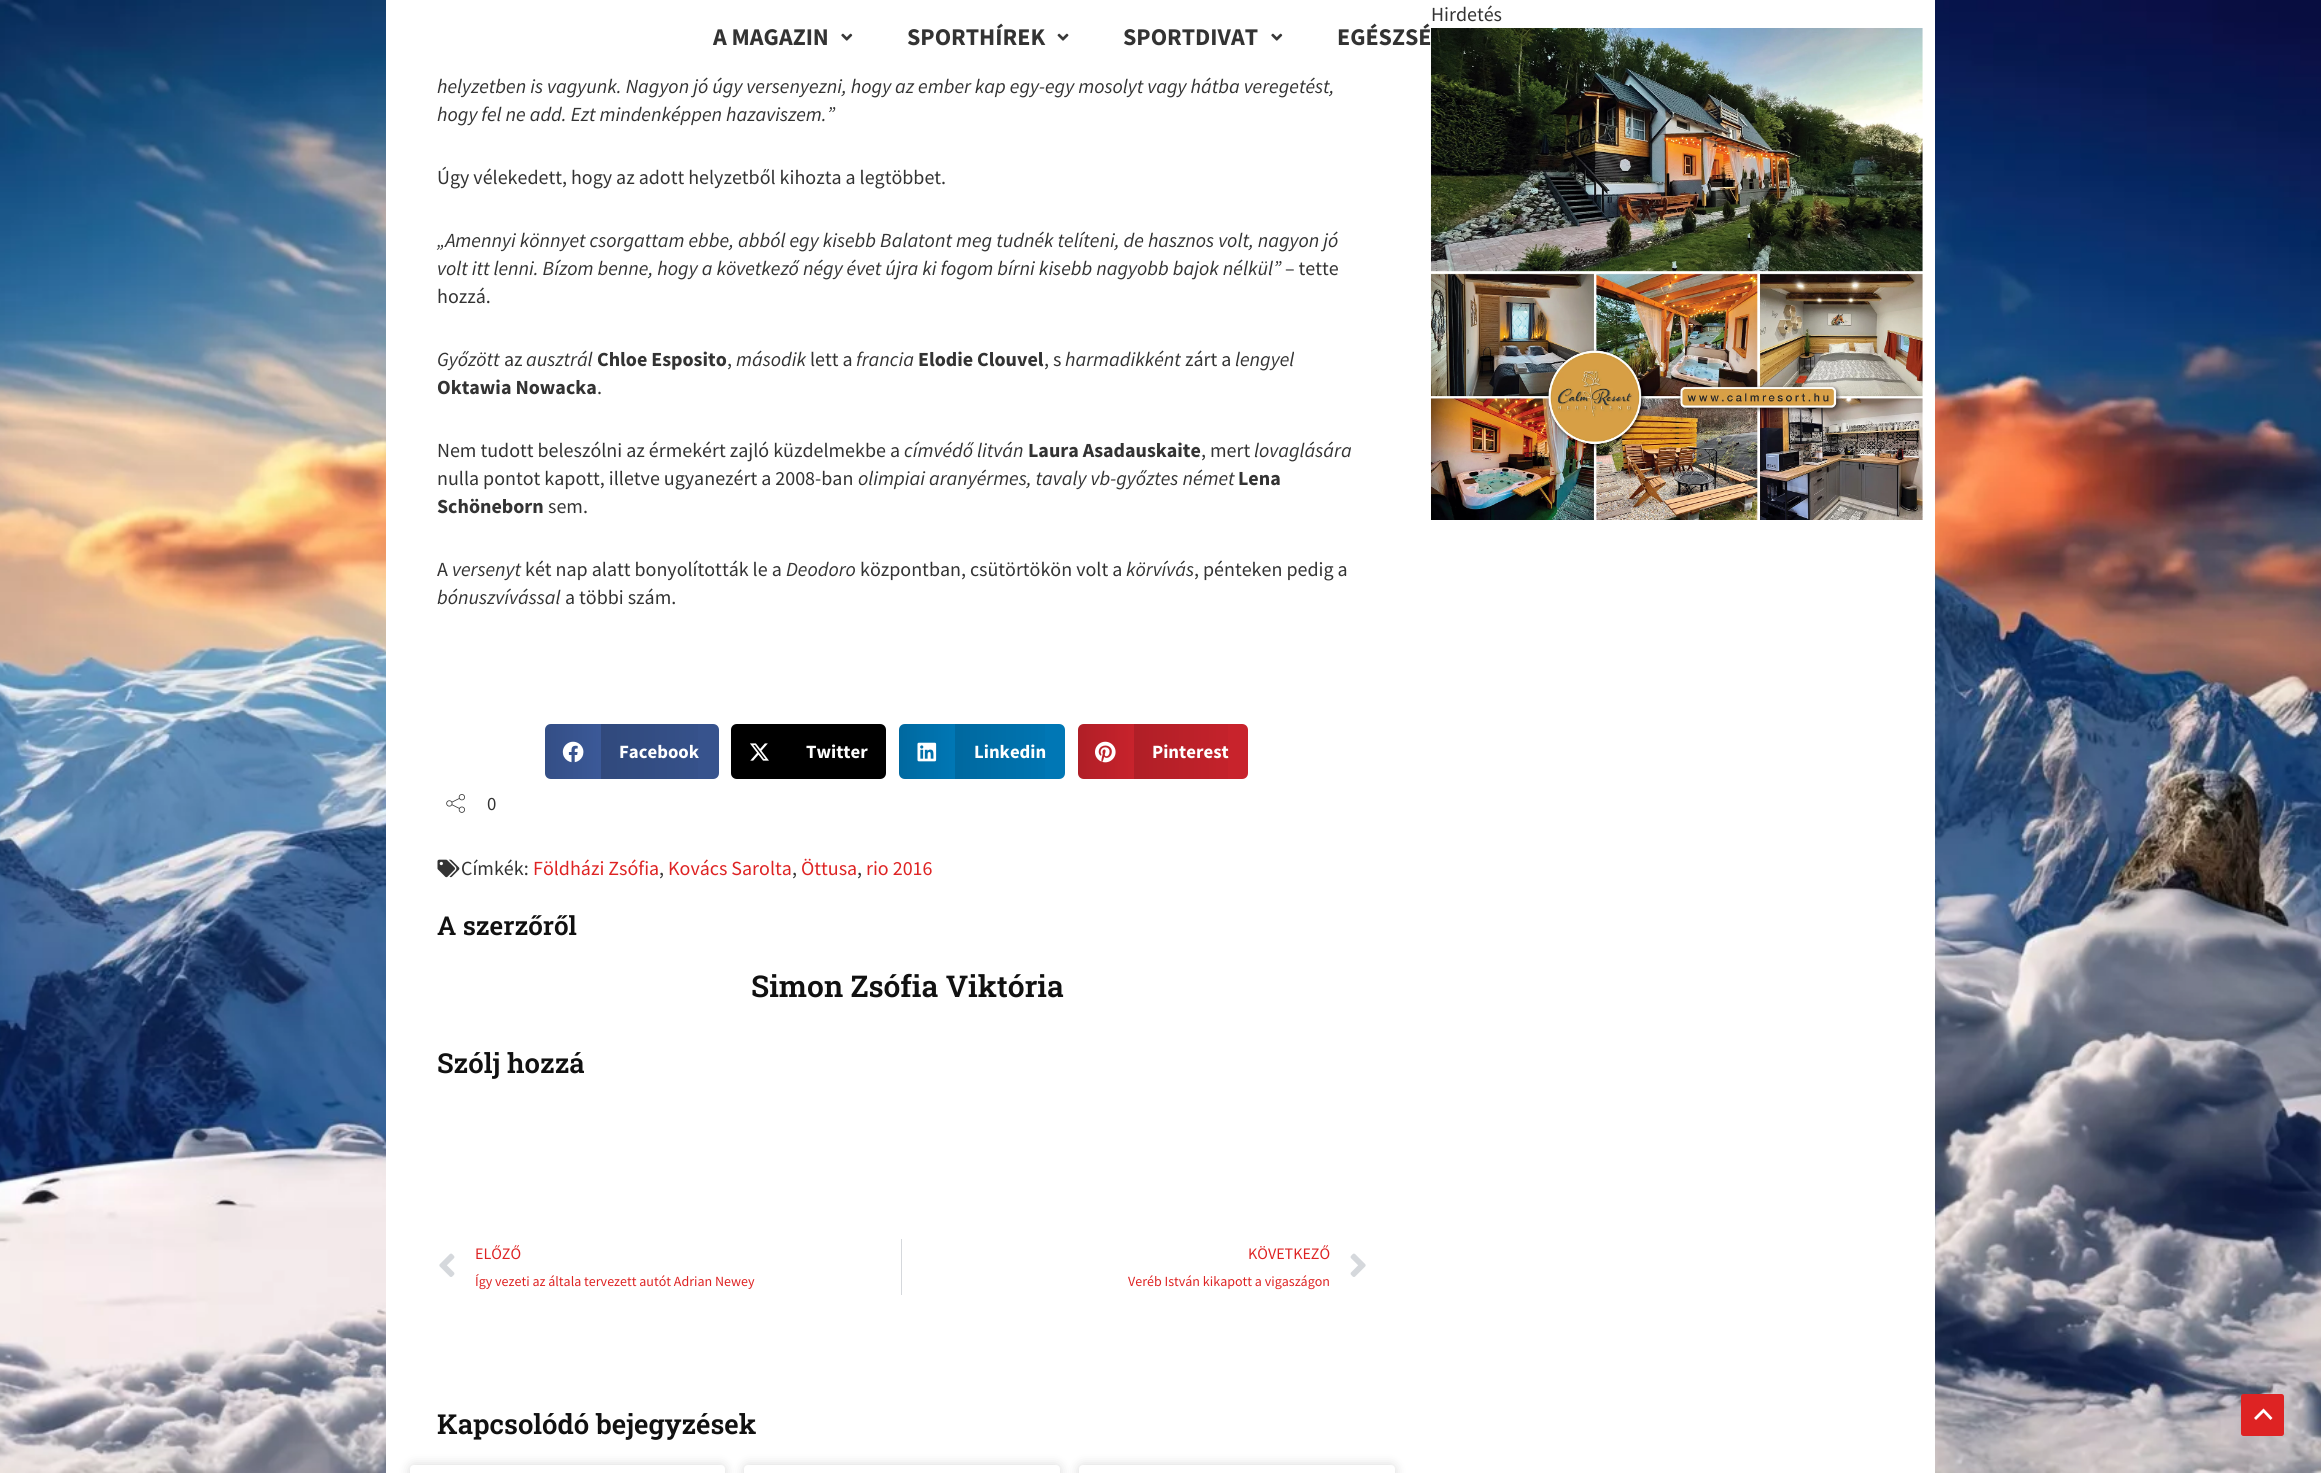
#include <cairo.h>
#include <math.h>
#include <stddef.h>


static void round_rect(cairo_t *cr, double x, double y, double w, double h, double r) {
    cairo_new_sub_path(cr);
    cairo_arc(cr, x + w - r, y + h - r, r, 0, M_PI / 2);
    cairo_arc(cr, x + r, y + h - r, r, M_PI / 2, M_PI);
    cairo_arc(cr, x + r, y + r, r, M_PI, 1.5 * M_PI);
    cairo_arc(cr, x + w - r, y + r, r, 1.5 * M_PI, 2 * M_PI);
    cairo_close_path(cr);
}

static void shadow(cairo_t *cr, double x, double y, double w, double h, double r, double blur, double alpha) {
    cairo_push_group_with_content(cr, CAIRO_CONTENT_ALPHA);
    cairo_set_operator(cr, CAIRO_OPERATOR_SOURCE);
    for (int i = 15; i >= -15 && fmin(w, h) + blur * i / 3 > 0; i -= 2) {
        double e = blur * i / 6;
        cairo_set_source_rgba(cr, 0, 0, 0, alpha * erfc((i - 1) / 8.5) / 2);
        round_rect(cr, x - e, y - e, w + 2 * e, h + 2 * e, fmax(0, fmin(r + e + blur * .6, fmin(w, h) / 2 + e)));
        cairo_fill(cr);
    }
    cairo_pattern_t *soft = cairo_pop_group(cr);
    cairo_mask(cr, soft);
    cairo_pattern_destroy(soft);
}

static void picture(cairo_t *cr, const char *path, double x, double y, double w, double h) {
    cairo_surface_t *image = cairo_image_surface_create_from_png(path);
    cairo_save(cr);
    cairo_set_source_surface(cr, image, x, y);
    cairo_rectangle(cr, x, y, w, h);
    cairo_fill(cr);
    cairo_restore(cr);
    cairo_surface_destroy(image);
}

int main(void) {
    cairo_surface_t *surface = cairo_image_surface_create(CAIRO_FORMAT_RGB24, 2321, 1473);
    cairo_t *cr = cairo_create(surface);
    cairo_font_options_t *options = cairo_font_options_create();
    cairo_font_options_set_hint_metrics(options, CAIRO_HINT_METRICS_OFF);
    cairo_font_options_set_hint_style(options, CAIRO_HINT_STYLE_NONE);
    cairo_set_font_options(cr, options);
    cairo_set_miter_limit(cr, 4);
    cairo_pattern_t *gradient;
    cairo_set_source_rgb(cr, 1, 1, 1);
    cairo_paint(cr);
    picture(cr, "img1.png", 0, 0, 2321, 1473);
    cairo_set_source_rgb(cr, 1, 1, 1);
    cairo_rectangle(cr, 386, 0, 1549, 1473);
    cairo_fill(cr);
    cairo_select_font_face(cr, "Source Sans Pro", CAIRO_FONT_SLANT_NORMAL, CAIRO_FONT_WEIGHT_NORMAL);
    cairo_set_font_size(cr, 20);
    cairo_set_source_rgb(cr, 0.2, 0.2, 0.2);
    cairo_move_to(cr, 1431, 21);
    cairo_show_text(cr, "Hirdetés");
    picture(cr, "img2.png", 1431, 28, 492, 492);
    cairo_select_font_face(cr, "Source Sans Pro", CAIRO_FONT_SLANT_ITALIC, CAIRO_FONT_WEIGHT_NORMAL);
    cairo_move_to(cr, 437, 93);
    cairo_show_text(cr, "helyzetben is vagyunk. Nagyon jó úgy versenyezni, hogy az ember kap egy-egy mosolyt vagy hátba veregetést,");
    cairo_move_to(cr, 437, 121);
    cairo_show_text(cr, "hogy fel ne add. Ezt mindenképpen hazaviszem.”");
    cairo_select_font_face(cr, "Source Sans Pro", CAIRO_FONT_SLANT_NORMAL, CAIRO_FONT_WEIGHT_NORMAL);
    cairo_move_to(cr, 437, 184);
    cairo_show_text(cr, "Úgy vélekedett, hogy az adott helyzetből kihozta a legtöbbet.");
    cairo_select_font_face(cr, "Source Sans Pro", CAIRO_FONT_SLANT_ITALIC, CAIRO_FONT_WEIGHT_NORMAL);
    cairo_move_to(cr, 437, 247);
    cairo_show_text(cr, "„Amennyi könnyet csorgattam ebbe, abból egy kisebb Balatont meg tudnék telíteni, de hasznos volt, nagyon jó");
    cairo_move_to(cr, 437, 275);
    cairo_show_text(cr, "volt itt lenni. Bízom benne, hogy a következő négy évet újra ki fogom bírni kisebb nagyobb bajok nélkül”");
    cairo_select_font_face(cr, "Source Sans Pro", CAIRO_FONT_SLANT_NORMAL, CAIRO_FONT_WEIGHT_NORMAL);
    cairo_move_to(cr, 1285, 275);
    cairo_show_text(cr, "– tette");
    cairo_move_to(cr, 437, 303);
    cairo_show_text(cr, "hozzá.");
    cairo_select_font_face(cr, "Source Sans Pro", CAIRO_FONT_SLANT_ITALIC, CAIRO_FONT_WEIGHT_NORMAL);
    cairo_move_to(cr, 437, 366);
    cairo_show_text(cr, "Győzött");
    cairo_select_font_face(cr, "Source Sans Pro", CAIRO_FONT_SLANT_NORMAL, CAIRO_FONT_WEIGHT_NORMAL);
    cairo_move_to(cr, 504, 366);
    cairo_show_text(cr, "az");
    cairo_select_font_face(cr, "Source Sans Pro", CAIRO_FONT_SLANT_ITALIC, CAIRO_FONT_WEIGHT_NORMAL);
    cairo_move_to(cr, 526, 366);
    cairo_show_text(cr, "ausztrál");
    cairo_select_font_face(cr, "Source Sans Pro", CAIRO_FONT_SLANT_NORMAL, CAIRO_FONT_WEIGHT_BOLD);
    cairo_move_to(cr, 597, 366);
    cairo_show_text(cr, "Chloe Esposito");
    cairo_select_font_face(cr, "Source Sans Pro", CAIRO_FONT_SLANT_NORMAL, CAIRO_FONT_WEIGHT_NORMAL);
    cairo_move_to(cr, 727, 366);
    cairo_show_text(cr, ",");
    cairo_select_font_face(cr, "Source Sans Pro", CAIRO_FONT_SLANT_ITALIC, CAIRO_FONT_WEIGHT_NORMAL);
    cairo_move_to(cr, 736, 366);
    cairo_show_text(cr, "második");
    cairo_select_font_face(cr, "Source Sans Pro", CAIRO_FONT_SLANT_NORMAL, CAIRO_FONT_WEIGHT_NORMAL);
    cairo_move_to(cr, 810, 366);
    cairo_show_text(cr, "lett a");
    cairo_select_font_face(cr, "Source Sans Pro", CAIRO_FONT_SLANT_ITALIC, CAIRO_FONT_WEIGHT_NORMAL);
    cairo_move_to(cr, 856, 366);
    cairo_show_text(cr, "francia");
    cairo_select_font_face(cr, "Source Sans Pro", CAIRO_FONT_SLANT_NORMAL, CAIRO_FONT_WEIGHT_BOLD);
    cairo_move_to(cr, 918, 366);
    cairo_show_text(cr, "Elodie Clouvel");
    cairo_select_font_face(cr, "Source Sans Pro", CAIRO_FONT_SLANT_NORMAL, CAIRO_FONT_WEIGHT_NORMAL);
    cairo_move_to(cr, 1044, 366);
    cairo_show_text(cr, ", s");
    cairo_select_font_face(cr, "Source Sans Pro", CAIRO_FONT_SLANT_ITALIC, CAIRO_FONT_WEIGHT_NORMAL);
    cairo_move_to(cr, 1065, 366);
    cairo_show_text(cr, "harmadikként");
    cairo_select_font_face(cr, "Source Sans Pro", CAIRO_FONT_SLANT_NORMAL, CAIRO_FONT_WEIGHT_NORMAL);
    cairo_move_to(cr, 1185, 366);
    cairo_show_text(cr, "zárt a");
    cairo_select_font_face(cr, "Source Sans Pro", CAIRO_FONT_SLANT_ITALIC, CAIRO_FONT_WEIGHT_NORMAL);
    cairo_move_to(cr, 1235, 366);
    cairo_show_text(cr, "lengyel");
    cairo_select_font_face(cr, "Source Sans Pro", CAIRO_FONT_SLANT_NORMAL, CAIRO_FONT_WEIGHT_BOLD);
    cairo_move_to(cr, 437, 394);
    cairo_show_text(cr, "Oktawia Nowacka");
    cairo_select_font_face(cr, "Source Sans Pro", CAIRO_FONT_SLANT_NORMAL, CAIRO_FONT_WEIGHT_NORMAL);
    cairo_move_to(cr, 597, 394);
    cairo_show_text(cr, ".");
    cairo_move_to(cr, 437, 457);
    cairo_show_text(cr, "Nem tudott beleszólni az érmekért zajló küzdelmekbe a");
    cairo_select_font_face(cr, "Source Sans Pro", CAIRO_FONT_SLANT_ITALIC, CAIRO_FONT_WEIGHT_NORMAL);
    cairo_move_to(cr, 904, 457);
    cairo_show_text(cr, "címvédő litván");
    cairo_select_font_face(cr, "Source Sans Pro", CAIRO_FONT_SLANT_NORMAL, CAIRO_FONT_WEIGHT_BOLD);
    cairo_move_to(cr, 1028, 457);
    cairo_show_text(cr, "Laura Asadauskaite");
    cairo_select_font_face(cr, "Source Sans Pro", CAIRO_FONT_SLANT_NORMAL, CAIRO_FONT_WEIGHT_NORMAL);
    cairo_move_to(cr, 1201, 457);
    cairo_show_text(cr, ", mert");
    cairo_select_font_face(cr, "Source Sans Pro", CAIRO_FONT_SLANT_ITALIC, CAIRO_FONT_WEIGHT_NORMAL);
    cairo_move_to(cr, 1254, 457);
    cairo_show_text(cr, "lovaglására");
    cairo_select_font_face(cr, "Source Sans Pro", CAIRO_FONT_SLANT_NORMAL, CAIRO_FONT_WEIGHT_NORMAL);
    cairo_move_to(cr, 437, 485);
    cairo_show_text(cr, "nulla pontot kapott, illetve ugyanezért a 2008-ban");
    cairo_select_font_face(cr, "Source Sans Pro", CAIRO_FONT_SLANT_ITALIC, CAIRO_FONT_WEIGHT_NORMAL);
    cairo_move_to(cr, 858, 485);
    cairo_show_text(cr, "olimpiai aranyérmes, tavaly vb-győztes német");
    cairo_select_font_face(cr, "Source Sans Pro", CAIRO_FONT_SLANT_NORMAL, CAIRO_FONT_WEIGHT_BOLD);
    cairo_move_to(cr, 1238, 485);
    cairo_show_text(cr, "Lena");
    cairo_move_to(cr, 437, 513);
    cairo_show_text(cr, "Schöneborn");
    cairo_select_font_face(cr, "Source Sans Pro", CAIRO_FONT_SLANT_NORMAL, CAIRO_FONT_WEIGHT_NORMAL);
    cairo_move_to(cr, 548, 513);
    cairo_show_text(cr, "sem.");
    cairo_move_to(cr, 437, 576);
    cairo_show_text(cr, "A");
    cairo_select_font_face(cr, "Source Sans Pro", CAIRO_FONT_SLANT_ITALIC, CAIRO_FONT_WEIGHT_NORMAL);
    cairo_move_to(cr, 452, 576);
    cairo_show_text(cr, "versenyt");
    cairo_select_font_face(cr, "Source Sans Pro", CAIRO_FONT_SLANT_NORMAL, CAIRO_FONT_WEIGHT_NORMAL);
    cairo_move_to(cr, 525, 576);
    cairo_show_text(cr, "két nap alatt bonyolították le a");
    cairo_select_font_face(cr, "Source Sans Pro", CAIRO_FONT_SLANT_ITALIC, CAIRO_FONT_WEIGHT_NORMAL);
    cairo_move_to(cr, 786, 576);
    cairo_show_text(cr, "Deodoro");
    cairo_select_font_face(cr, "Source Sans Pro", CAIRO_FONT_SLANT_NORMAL, CAIRO_FONT_WEIGHT_NORMAL);
    cairo_move_to(cr, 860, 576);
    cairo_show_text(cr, "központban, csütörtökön volt a");
    cairo_select_font_face(cr, "Source Sans Pro", CAIRO_FONT_SLANT_ITALIC, CAIRO_FONT_WEIGHT_NORMAL);
    cairo_move_to(cr, 1126, 576);
    cairo_show_text(cr, "körvívás");
    cairo_select_font_face(cr, "Source Sans Pro", CAIRO_FONT_SLANT_NORMAL, CAIRO_FONT_WEIGHT_NORMAL);
    cairo_move_to(cr, 1194, 576);
    cairo_show_text(cr, ", pénteken pedig a");
    cairo_select_font_face(cr, "Source Sans Pro", CAIRO_FONT_SLANT_ITALIC, CAIRO_FONT_WEIGHT_NORMAL);
    cairo_move_to(cr, 437, 604);
    cairo_show_text(cr, "bónuszvívással");
    cairo_select_font_face(cr, "Source Sans Pro", CAIRO_FONT_SLANT_NORMAL, CAIRO_FONT_WEIGHT_NORMAL);
    cairo_move_to(cr, 565, 604);
    cairo_show_text(cr, "a többi szám.");
    cairo_set_source_rgb(cr, 0.231, 0.349, 0.596);
    cairo_new_path(cr);
    cairo_move_to(cr, 551, 724);
    cairo_line_to(cr, 601, 724);
    cairo_line_to(cr, 601, 779);
    cairo_line_to(cr, 551, 779);
    cairo_curve_to(cr, 547.5, 779, 545, 776.5, 545, 773);
    cairo_line_to(cr, 545, 730);
    cairo_curve_to(cr, 545, 726.5, 547.5, 724, 551, 724);
    cairo_close_path(cr);
    cairo_fill(cr);
    gradient = cairo_pattern_create_linear(545, 724, 601, 724);
    cairo_pattern_add_color_stop_rgba(gradient, 0, 0, 0, 0, 0.12);
    cairo_pattern_add_color_stop_rgba(gradient, 1, 0, 0, 0, 0);
    cairo_set_source(cr, gradient);
    cairo_pattern_destroy(gradient);
    cairo_new_path(cr);
    cairo_move_to(cr, 551, 724);
    cairo_line_to(cr, 601, 724);
    cairo_line_to(cr, 601, 779);
    cairo_line_to(cr, 551, 779);
    cairo_curve_to(cr, 547.5, 779, 545, 776.5, 545, 773);
    cairo_line_to(cr, 545, 730);
    cairo_curve_to(cr, 545, 726.5, 547.5, 724, 551, 724);
    cairo_close_path(cr);
    cairo_fill(cr);
    picture(cr, "img3.png", 562, 741, 22, 22);
    cairo_set_source_rgb(cr, 0.216, 0.325, 0.553);
    cairo_new_path(cr);
    cairo_move_to(cr, 601, 724);
    cairo_line_to(cr, 713, 724);
    cairo_curve_to(cr, 716.5, 724, 719, 726.5, 719, 730);
    cairo_line_to(cr, 719, 773);
    cairo_curve_to(cr, 719, 776.5, 716.5, 779, 713, 779);
    cairo_line_to(cr, 601, 779);
    cairo_close_path(cr);
    cairo_fill(cr);
    gradient = cairo_pattern_create_linear(601, 724, 719, 724);
    cairo_pattern_add_color_stop_rgba(gradient, 0, 0, 0, 0, 0.12);
    cairo_pattern_add_color_stop_rgba(gradient, 1, 0, 0, 0, 0);
    cairo_set_source(cr, gradient);
    cairo_pattern_destroy(gradient);
    cairo_rectangle(cr, 601, 724, 97, 55);
    cairo_fill(cr);
    cairo_select_font_face(cr, "Source Sans Pro", CAIRO_FONT_SLANT_NORMAL, CAIRO_FONT_WEIGHT_BOLD);
    cairo_set_font_size(cr, 18.75);
    cairo_set_source_rgb(cr, 1, 1, 1);
    cairo_move_to(cr, 619, 758);
    cairo_show_text(cr, "Facebook");
    cairo_set_source_rgb(cr, 0, 0, 0);
    cairo_new_path(cr);
    cairo_move_to(cr, 737, 724);
    cairo_line_to(cr, 788, 724);
    cairo_line_to(cr, 788, 779);
    cairo_line_to(cr, 737, 779);
    cairo_curve_to(cr, 733.5, 779, 731, 776.5, 731, 773);
    cairo_line_to(cr, 731, 730);
    cairo_curve_to(cr, 731, 726.5, 733.5, 724, 737, 724);
    cairo_close_path(cr);
    cairo_fill(cr);
    gradient = cairo_pattern_create_linear(731, 724, 788, 724);
    cairo_pattern_add_color_stop_rgba(gradient, 0, 0, 0, 0, 0.12);
    cairo_pattern_add_color_stop_rgba(gradient, 1, 0, 0, 0, 0);
    cairo_set_source(cr, gradient);
    cairo_pattern_destroy(gradient);
    cairo_new_path(cr);
    cairo_move_to(cr, 737, 724);
    cairo_line_to(cr, 788, 724);
    cairo_line_to(cr, 788, 779);
    cairo_line_to(cr, 737, 779);
    cairo_curve_to(cr, 733.5, 779, 731, 776.5, 731, 773);
    cairo_line_to(cr, 731, 730);
    cairo_curve_to(cr, 731, 726.5, 733.5, 724, 737, 724);
    cairo_close_path(cr);
    cairo_fill(cr);
    picture(cr, "img4.png", 750, 743, 19, 18);
    cairo_set_source_rgb(cr, 0, 0, 0);
    cairo_new_path(cr);
    cairo_move_to(cr, 788, 724);
    cairo_line_to(cr, 880, 724);
    cairo_curve_to(cr, 883.5, 724, 886, 726.5, 886, 730);
    cairo_line_to(cr, 886, 773);
    cairo_curve_to(cr, 886, 776.5, 883.5, 779, 880, 779);
    cairo_line_to(cr, 788, 779);
    cairo_close_path(cr);
    cairo_fill(cr);
    cairo_set_source_rgb(cr, 1, 1, 1);
    cairo_move_to(cr, 806, 758);
    cairo_show_text(cr, "Twitter");
    cairo_set_source_rgb(cr, 0, 0.467, 0.71);
    cairo_new_path(cr);
    cairo_move_to(cr, 905, 724);
    cairo_line_to(cr, 955, 724);
    cairo_line_to(cr, 955, 779);
    cairo_line_to(cr, 905, 779);
    cairo_curve_to(cr, 901.5, 779, 899, 776.5, 899, 773);
    cairo_line_to(cr, 899, 730);
    cairo_curve_to(cr, 899, 726.5, 901.5, 724, 905, 724);
    cairo_close_path(cr);
    cairo_fill(cr);
    gradient = cairo_pattern_create_linear(899, 724, 955, 724);
    cairo_pattern_add_color_stop_rgba(gradient, 0, 0, 0, 0, 0.12);
    cairo_pattern_add_color_stop_rgba(gradient, 1, 0, 0, 0, 0);
    cairo_set_source(cr, gradient);
    cairo_pattern_destroy(gradient);
    cairo_new_path(cr);
    cairo_move_to(cr, 905, 724);
    cairo_line_to(cr, 955, 724);
    cairo_line_to(cr, 955, 779);
    cairo_line_to(cr, 905, 779);
    cairo_curve_to(cr, 901.5, 779, 899, 776.5, 899, 773);
    cairo_line_to(cr, 899, 730);
    cairo_curve_to(cr, 899, 726.5, 901.5, 724, 905, 724);
    cairo_close_path(cr);
    cairo_fill(cr);
    picture(cr, "img5.png", 917, 742, 20, 20);
    cairo_set_source_rgb(cr, 0, 0.467, 0.71);
    cairo_new_path(cr);
    cairo_move_to(cr, 955, 724);
    cairo_line_to(cr, 1059, 724);
    cairo_curve_to(cr, 1062.5, 724, 1065, 726.5, 1065, 730);
    cairo_line_to(cr, 1065, 773);
    cairo_curve_to(cr, 1065, 776.5, 1062.5, 779, 1059, 779);
    cairo_line_to(cr, 955, 779);
    cairo_close_path(cr);
    cairo_fill(cr);
    gradient = cairo_pattern_create_linear(955, 724, 1065, 724);
    cairo_pattern_add_color_stop_rgba(gradient, 0, 0, 0, 0, 0.12);
    cairo_pattern_add_color_stop_rgba(gradient, 1, 0, 0, 0, 0);
    cairo_set_source(cr, gradient);
    cairo_pattern_destroy(gradient);
    cairo_rectangle(cr, 955, 724, 90, 55);
    cairo_fill(cr);
    cairo_set_source_rgb(cr, 1, 1, 1);
    cairo_move_to(cr, 974, 758);
    cairo_show_text(cr, "Linkedin");
    cairo_set_source_rgb(cr, 0.784, 0.137, 0.173);
    cairo_new_path(cr);
    cairo_move_to(cr, 1084, 724);
    cairo_line_to(cr, 1134, 724);
    cairo_line_to(cr, 1134, 779);
    cairo_line_to(cr, 1084, 779);
    cairo_curve_to(cr, 1080.5, 779, 1078, 776.5, 1078, 773);
    cairo_line_to(cr, 1078, 730);
    cairo_curve_to(cr, 1078, 726.5, 1080.5, 724, 1084, 724);
    cairo_close_path(cr);
    cairo_fill(cr);
    gradient = cairo_pattern_create_linear(1078, 724, 1134, 724);
    cairo_pattern_add_color_stop_rgba(gradient, 0, 0, 0, 0, 0.12);
    cairo_pattern_add_color_stop_rgba(gradient, 1, 0, 0, 0, 0);
    cairo_set_source(cr, gradient);
    cairo_pattern_destroy(gradient);
    cairo_new_path(cr);
    cairo_move_to(cr, 1084, 724);
    cairo_line_to(cr, 1134, 724);
    cairo_line_to(cr, 1134, 779);
    cairo_line_to(cr, 1084, 779);
    cairo_curve_to(cr, 1080.5, 779, 1078, 776.5, 1078, 773);
    cairo_line_to(cr, 1078, 730);
    cairo_curve_to(cr, 1078, 726.5, 1080.5, 724, 1084, 724);
    cairo_close_path(cr);
    cairo_fill(cr);
    picture(cr, "img6.png", 1095, 741, 21, 22);
    cairo_set_source_rgb(cr, 0.784, 0.137, 0.173);
    cairo_new_path(cr);
    cairo_move_to(cr, 1134, 724);
    cairo_line_to(cr, 1242, 724);
    cairo_curve_to(cr, 1245.5, 724, 1248, 726.5, 1248, 730);
    cairo_line_to(cr, 1248, 773);
    cairo_curve_to(cr, 1248, 776.5, 1245.5, 779, 1242, 779);
    cairo_line_to(cr, 1134, 779);
    cairo_close_path(cr);
    cairo_fill(cr);
    gradient = cairo_pattern_create_linear(1134, 724, 1248, 724);
    cairo_pattern_add_color_stop_rgba(gradient, 0, 0, 0, 0, 0.12);
    cairo_pattern_add_color_stop_rgba(gradient, 1, 0, 0, 0, 0);
    cairo_set_source(cr, gradient);
    cairo_pattern_destroy(gradient);
    cairo_rectangle(cr, 1134, 724, 94, 55);
    cairo_fill(cr);
    cairo_set_source_rgb(cr, 1, 1, 1);
    cairo_move_to(cr, 1152, 758);
    cairo_show_text(cr, "Pinterest");
    picture(cr, "img7.png", 446, 794, 19, 19);
    cairo_select_font_face(cr, "Source Sans Pro", CAIRO_FONT_SLANT_NORMAL, CAIRO_FONT_WEIGHT_NORMAL);
    cairo_set_source_rgb(cr, 0.2, 0.2, 0.2);
    cairo_move_to(cr, 487, 810);
    cairo_show_text(cr, "0");
    picture(cr, "img8.png", 437, 859, 23, 19);
    cairo_set_font_size(cr, 20);
    cairo_move_to(cr, 461, 875);
    cairo_show_text(cr, "Címkék:");
    cairo_set_source_rgb(cr, 0.871, 0.137, 0.137);
    cairo_move_to(cr, 533, 875);
    cairo_show_text(cr, "Földházi Zsófia");
    cairo_set_source_rgb(cr, 0.2, 0.2, 0.2);
    cairo_move_to(cr, 659, 875);
    cairo_show_text(cr, ",");
    cairo_set_source_rgb(cr, 0.871, 0.137, 0.137);
    cairo_move_to(cr, 668, 875);
    cairo_show_text(cr, "Kovács Sarolta");
    cairo_set_source_rgb(cr, 0.2, 0.2, 0.2);
    cairo_move_to(cr, 792, 875);
    cairo_show_text(cr, ",");
    cairo_set_source_rgb(cr, 0.871, 0.137, 0.137);
    cairo_move_to(cr, 801, 875);
    cairo_show_text(cr, "Öttusa");
    cairo_set_source_rgb(cr, 0.2, 0.2, 0.2);
    cairo_move_to(cr, 857, 875);
    cairo_show_text(cr, ",");
    cairo_set_source_rgb(cr, 0.871, 0.137, 0.137);
    cairo_move_to(cr, 866, 875);
    cairo_show_text(cr, "rio 2016");
    cairo_select_font_face(cr, "Roboto Slab SemiBold", CAIRO_FONT_SLANT_NORMAL, CAIRO_FONT_WEIGHT_NORMAL);
    cairo_set_font_size(cr, 26);
    cairo_set_source_rgb(cr, 0.067, 0.067, 0.067);
    cairo_move_to(cr, 437, 935);
    cairo_show_text(cr, "A szerzőről");
    cairo_set_font_size(cr, 30);
    cairo_move_to(cr, 751, 997);
    cairo_show_text(cr, "Simon Zsófia Viktória");
    cairo_set_font_size(cr, 27.5);
    cairo_move_to(cr, 437, 1073);
    cairo_show_text(cr, "Szólj hozzá");
    picture(cr, "img9.png", 439, 1253, 16, 24);
    cairo_select_font_face(cr, "Source Sans Pro", CAIRO_FONT_SLANT_NORMAL, CAIRO_FONT_WEIGHT_NORMAL);
    cairo_set_font_size(cr, 16);
    cairo_set_source_rgb(cr, 0.871, 0.137, 0.137);
    cairo_move_to(cr, 475, 1259);
    cairo_show_text(cr, "ELŐZŐ");
    cairo_set_font_size(cr, 14);
    cairo_move_to(cr, 475, 1286);
    cairo_show_text(cr, "Így vezeti az általa tervezett autót Adrian Newey");
    cairo_set_source_rgb(cr, 0.835, 0.847, 0.863);
    cairo_rectangle(cr, 901, 1239, 1, 56);
    cairo_fill(cr);
    cairo_set_font_size(cr, 16);
    cairo_set_source_rgb(cr, 0.871, 0.137, 0.137);
    cairo_move_to(cr, 1248, 1259);
    cairo_show_text(cr, "KÖVETKEZŐ");
    cairo_set_font_size(cr, 14);
    cairo_move_to(cr, 1128, 1286);
    cairo_show_text(cr, "Veréb István kikapott a vigaszágon");
    picture(cr, "img10.png", 1350, 1253, 16, 24);
    cairo_select_font_face(cr, "Roboto Slab SemiBold", CAIRO_FONT_SLANT_NORMAL, CAIRO_FONT_WEIGHT_NORMAL);
    cairo_set_font_size(cr, 27.5);
    cairo_set_source_rgb(cr, 0.067, 0.067, 0.067);
    cairo_move_to(cr, 437, 1434);
    cairo_show_text(cr, "Kapcsolódó bejegyzések");
    cairo_set_source_rgb(cr, 0, 0, 0);
    shadow(cr, 410, 1465, 315, 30, 4, 6, 0.15);
    cairo_set_source_rgb(cr, 1, 1, 1);
    round_rect(cr, 410, 1465, 315, 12, 4);
    cairo_fill(cr);
    cairo_set_source_rgb(cr, 0, 0, 0);
    shadow(cr, 744, 1465, 316, 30, 4, 6, 0.15);
    cairo_set_source_rgb(cr, 1, 1, 1);
    round_rect(cr, 744, 1465, 316, 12, 4);
    cairo_fill(cr);
    cairo_set_source_rgb(cr, 0, 0, 0);
    shadow(cr, 1079, 1465, 316, 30, 4, 6, 0.15);
    cairo_set_source_rgb(cr, 1, 1, 1);
    round_rect(cr, 1079, 1465, 316, 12, 4);
    cairo_fill(cr);
    cairo_select_font_face(cr, "Source Sans Pro", CAIRO_FONT_SLANT_NORMAL, CAIRO_FONT_WEIGHT_BOLD);
    cairo_set_font_size(cr, 24);
    cairo_set_source_rgb(cr, 0.2, 0.2, 0.2);
    cairo_move_to(cr, 713, 45);
    cairo_show_text(cr, "A MAGAZIN");
    picture(cr, "img11.png", 841, 33, 12, 8);
    cairo_move_to(cr, 907, 45);
    cairo_show_text(cr, "SPORTHÍREK");
    picture(cr, "img12.png", 1057, 33, 12, 8);
    cairo_move_to(cr, 1123, 45);
    cairo_show_text(cr, "SPORTDIVAT");
    picture(cr, "img11.png", 1271, 33, 12, 8);
    cairo_move_to(cr, 1337, 45);
    cairo_show_text(cr, "EGÉSZSÉ");
    cairo_set_source_rgb(cr, 0.871, 0.137, 0.137);
    round_rect(cr, 2241, 1394, 43, 42, 2.5);
    cairo_fill(cr);
    cairo_set_source_rgb(cr, 1, 1, 1);
    cairo_new_path(cr);
    cairo_move_to(cr, 2272.5, 1418);
    cairo_line_to(cr, 2263.5, 1408.5);
    cairo_line_to(cr, 2254, 1418);
    cairo_line_to(cr, 2256, 1420);
    cairo_line_to(cr, 2263.5, 1412.5);
    cairo_line_to(cr, 2270.5, 1420);
    cairo_close_path(cr);
    cairo_fill(cr);
    cairo_surface_write_to_png(surface, "page.png");
    cairo_font_options_destroy(options);
    cairo_destroy(cr);
    cairo_surface_destroy(surface);
    return 0;
}
